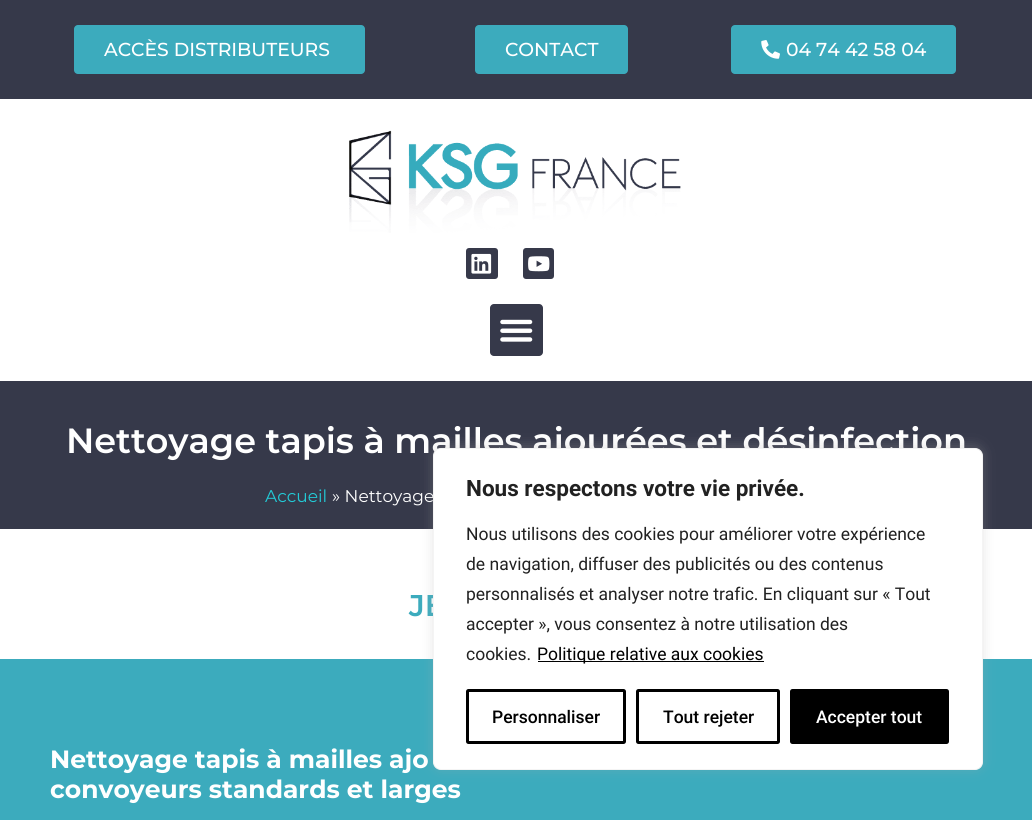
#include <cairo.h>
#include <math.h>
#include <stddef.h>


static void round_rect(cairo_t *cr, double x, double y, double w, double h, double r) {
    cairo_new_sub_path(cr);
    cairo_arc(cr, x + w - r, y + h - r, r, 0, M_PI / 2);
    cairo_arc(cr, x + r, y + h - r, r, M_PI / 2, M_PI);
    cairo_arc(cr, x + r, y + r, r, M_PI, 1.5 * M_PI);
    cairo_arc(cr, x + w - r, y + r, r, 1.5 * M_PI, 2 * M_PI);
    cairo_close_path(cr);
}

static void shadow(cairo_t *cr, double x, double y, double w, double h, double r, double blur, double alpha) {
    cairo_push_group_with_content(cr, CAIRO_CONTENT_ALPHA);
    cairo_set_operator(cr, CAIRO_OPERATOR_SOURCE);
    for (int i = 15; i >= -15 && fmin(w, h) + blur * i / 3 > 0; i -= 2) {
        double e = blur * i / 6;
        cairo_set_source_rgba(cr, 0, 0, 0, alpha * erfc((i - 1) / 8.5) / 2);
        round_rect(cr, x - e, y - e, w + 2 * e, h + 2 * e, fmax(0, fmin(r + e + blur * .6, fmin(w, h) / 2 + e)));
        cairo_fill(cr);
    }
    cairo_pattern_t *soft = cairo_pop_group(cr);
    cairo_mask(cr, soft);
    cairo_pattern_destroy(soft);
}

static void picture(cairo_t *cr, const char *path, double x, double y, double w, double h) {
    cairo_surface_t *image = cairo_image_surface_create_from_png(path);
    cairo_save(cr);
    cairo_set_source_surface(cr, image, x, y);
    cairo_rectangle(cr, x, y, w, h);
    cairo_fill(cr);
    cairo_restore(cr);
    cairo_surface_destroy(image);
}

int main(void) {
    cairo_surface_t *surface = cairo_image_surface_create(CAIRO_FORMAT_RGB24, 1032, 820);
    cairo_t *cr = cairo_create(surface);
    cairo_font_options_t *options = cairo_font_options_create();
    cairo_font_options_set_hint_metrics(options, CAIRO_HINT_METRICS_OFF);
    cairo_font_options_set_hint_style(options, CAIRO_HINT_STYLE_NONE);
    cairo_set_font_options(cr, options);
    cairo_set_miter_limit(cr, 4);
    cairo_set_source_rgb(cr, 1, 1, 1);
    cairo_paint(cr);
    cairo_set_source_rgb(cr, 0.212, 0.224, 0.29);
    cairo_rectangle(cr, 0, 0, 1032, 99);
    cairo_fill(cr);
    cairo_set_source_rgb(cr, 0.235, 0.671, 0.741);
    round_rect(cr, 74, 25, 291, 49, 4);
    cairo_fill(cr);
    cairo_select_font_face(cr, "Montserrat Medium", CAIRO_FONT_SLANT_NORMAL, CAIRO_FONT_WEIGHT_NORMAL);
    cairo_set_font_size(cr, 18.75);
    cairo_set_source_rgb(cr, 1, 1, 1);
    cairo_move_to(cr, 104, 56);
    cairo_show_text(cr, "ACCÈS DISTRIBUTEURS");
    cairo_set_source_rgb(cr, 0.235, 0.671, 0.741);
    round_rect(cr, 475, 25, 153, 49, 4);
    cairo_fill(cr);
    cairo_set_source_rgb(cr, 1, 1, 1);
    cairo_move_to(cr, 505, 56);
    cairo_show_text(cr, "CONTACT");
    cairo_set_source_rgb(cr, 0.235, 0.671, 0.741);
    round_rect(cr, 731, 25, 225, 49, 4);
    cairo_fill(cr);
    picture(cr, "img1.png", 761, 40, 19, 19);
    cairo_set_source_rgb(cr, 1, 1, 1);
    cairo_move_to(cr, 786, 56);
    cairo_show_text(cr, "04 74 42 58 04");
    picture(cr, "img2.png", 349, 130, 332, 103);
    cairo_set_source_rgb(cr, 0.212, 0.224, 0.29);
    round_rect(cr, 466, 248, 32, 31, 3);
    cairo_fill(cr);
    picture(cr, "img3.png", 471, 253, 21, 21);
    round_rect(cr, 523, 248, 31, 31, 3);
    cairo_fill(cr);
    picture(cr, "img4.png", 528, 256, 22, 16);
    round_rect(cr, 490, 304, 53, 52, 4);
    cairo_fill(cr);
    picture(cr, "img5.png", 500, 319, 33, 23);
    cairo_rectangle(cr, 0, 381, 1032, 148);
    cairo_fill(cr);
    cairo_select_font_face(cr, "Montserrat SemiBold", CAIRO_FONT_SLANT_NORMAL, CAIRO_FONT_WEIGHT_NORMAL);
    cairo_set_font_size(cr, 35);
    cairo_set_source_rgb(cr, 1, 1, 1);
    cairo_move_to(cr, 66, 453);
    cairo_show_text(cr, "Nettoyage tapis à mailles ajourées et désinfection");
    cairo_select_font_face(cr, "Montserrat", CAIRO_FONT_SLANT_NORMAL, CAIRO_FONT_WEIGHT_NORMAL);
    cairo_set_font_size(cr, 17);
    cairo_set_source_rgb(cr, 0.133, 0.792, 0.839);
    cairo_move_to(cr, 265, 502);
    cairo_show_text(cr, "Accueil");
    cairo_set_source_rgb(cr, 1, 1, 1);
    cairo_move_to(cr, 332, 502);
    cairo_show_text(cr, "» Nettoyage");
    cairo_select_font_face(cr, "Montserrat SemiBold", CAIRO_FONT_SLANT_NORMAL, CAIRO_FONT_WEIGHT_NORMAL);
    cairo_set_font_size(cr, 30);
    cairo_set_source_rgb(cr, 0.235, 0.671, 0.741);
    cairo_move_to(cr, 409, 616);
    cairo_show_text(cr, "JE");
    cairo_rectangle(cr, 0, 659, 1032, 161);
    cairo_fill(cr);
    cairo_select_font_face(cr, "Montserrat", CAIRO_FONT_SLANT_NORMAL, CAIRO_FONT_WEIGHT_BOLD);
    cairo_set_font_size(cr, 25);
    cairo_set_source_rgb(cr, 1, 1, 1);
    cairo_move_to(cr, 50, 768);
    cairo_show_text(cr, "Nettoyage tapis à mailles ajo");
    cairo_move_to(cr, 50, 798);
    cairo_show_text(cr, "convoyeurs standards et larges");
    cairo_set_source_rgb(cr, 0.675, 0.671, 0.671);
    shadow(cr, 433, 446, 550, 323, 8, 6, 0.3);
    cairo_set_source_rgb(cr, 1, 1, 1);
    round_rect(cr, 433.5, 448.5, 549, 321, 7.5);
    cairo_fill_preserve(cr);
    cairo_set_source_rgb(cr, 0.957, 0.957, 0.957);
    cairo_set_line_width(cr, 1);
    cairo_stroke(cr);
    cairo_select_font_face(cr, "Roboto", CAIRO_FONT_SLANT_NORMAL, CAIRO_FONT_WEIGHT_BOLD);
    cairo_set_font_size(cr, 22.5);
    cairo_set_source_rgb(cr, 0.129, 0.129, 0.129);
    cairo_move_to(cr, 466, 496);
    cairo_show_text(cr, "Nous respectons votre vie privée.");
    cairo_select_font_face(cr, "Roboto", CAIRO_FONT_SLANT_NORMAL, CAIRO_FONT_WEIGHT_NORMAL);
    cairo_set_font_size(cr, 17.5);
    cairo_move_to(cr, 466, 540);
    cairo_show_text(cr, "Nous utilisons des cookies pour améliorer votre expérience");
    cairo_move_to(cr, 466, 570);
    cairo_show_text(cr, "de navigation, diffuser des publicités ou des contenus");
    cairo_move_to(cr, 466, 600);
    cairo_show_text(cr, "personnalisés et analyser notre trafic. En cliquant sur « Tout");
    cairo_move_to(cr, 466, 630);
    cairo_show_text(cr, "accepter », vous consentez à notre utilisation des");
    cairo_move_to(cr, 466, 660);
    cairo_show_text(cr, "cookies.");
    cairo_set_source_rgb(cr, 0, 0, 0);
    cairo_rectangle(cr, 538, 661, 226, 1);
    cairo_fill(cr);
    cairo_move_to(cr, 537, 660);
    cairo_show_text(cr, "Politique relative aux cookies");
    round_rect(cr, 467.5, 690.5, 157, 52, 1);
    cairo_set_line_width(cr, 3);
    cairo_stroke(cr);
    cairo_select_font_face(cr, "Roboto Medium", CAIRO_FONT_SLANT_NORMAL, CAIRO_FONT_WEIGHT_NORMAL);
    cairo_move_to(cr, 492, 723);
    cairo_show_text(cr, "Personnaliser");
    round_rect(cr, 637.5, 690.5, 141, 52, 1);
    cairo_stroke(cr);
    cairo_move_to(cr, 663, 723);
    cairo_show_text(cr, "Tout rejeter");
    round_rect(cr, 791.5, 690.5, 156, 52, 1);
    cairo_fill_preserve(cr);
    cairo_stroke(cr);
    cairo_set_source_rgb(cr, 1, 1, 1);
    cairo_move_to(cr, 816, 723);
    cairo_show_text(cr, "Accepter tout");
    cairo_surface_write_to_png(surface, "page.png");
    cairo_font_options_destroy(options);
    cairo_destroy(cr);
    cairo_surface_destroy(surface);
    return 0;
}
